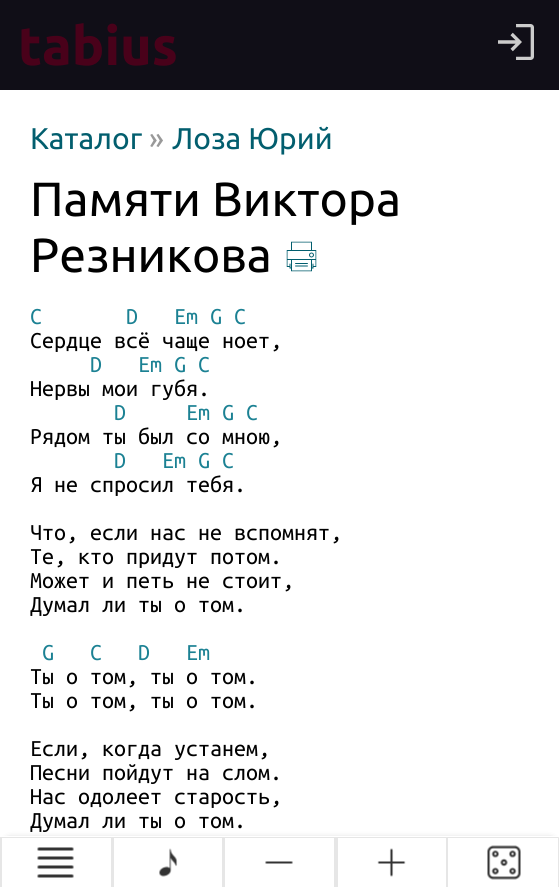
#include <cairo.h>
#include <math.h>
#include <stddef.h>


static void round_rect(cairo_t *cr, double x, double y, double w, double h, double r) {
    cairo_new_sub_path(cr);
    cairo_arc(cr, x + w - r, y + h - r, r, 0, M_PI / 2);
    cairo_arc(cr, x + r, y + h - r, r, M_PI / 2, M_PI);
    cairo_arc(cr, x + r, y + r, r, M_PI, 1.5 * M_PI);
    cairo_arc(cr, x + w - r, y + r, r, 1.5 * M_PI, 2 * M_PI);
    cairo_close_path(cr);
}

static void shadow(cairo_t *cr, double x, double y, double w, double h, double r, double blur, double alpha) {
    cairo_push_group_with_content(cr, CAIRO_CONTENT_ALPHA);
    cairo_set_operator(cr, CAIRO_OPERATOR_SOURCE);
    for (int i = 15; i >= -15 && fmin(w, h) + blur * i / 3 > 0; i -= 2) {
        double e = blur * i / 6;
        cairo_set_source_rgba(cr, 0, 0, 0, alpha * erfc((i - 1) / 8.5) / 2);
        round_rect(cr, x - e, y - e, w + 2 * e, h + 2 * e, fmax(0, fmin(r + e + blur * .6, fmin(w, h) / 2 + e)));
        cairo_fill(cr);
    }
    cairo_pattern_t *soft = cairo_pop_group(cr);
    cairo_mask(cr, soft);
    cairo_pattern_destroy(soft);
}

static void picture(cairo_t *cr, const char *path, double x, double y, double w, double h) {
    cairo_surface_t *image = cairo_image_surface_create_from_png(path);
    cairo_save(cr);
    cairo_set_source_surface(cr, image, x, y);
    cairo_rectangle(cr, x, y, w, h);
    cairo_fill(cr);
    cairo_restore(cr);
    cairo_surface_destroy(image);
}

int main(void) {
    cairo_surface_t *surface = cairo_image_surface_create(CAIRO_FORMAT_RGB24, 559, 887);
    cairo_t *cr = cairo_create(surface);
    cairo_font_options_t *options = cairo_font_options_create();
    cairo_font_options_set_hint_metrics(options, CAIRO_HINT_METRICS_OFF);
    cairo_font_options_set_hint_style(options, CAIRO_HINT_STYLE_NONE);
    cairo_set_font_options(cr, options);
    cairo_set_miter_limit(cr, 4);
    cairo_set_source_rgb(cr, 1, 1, 1);
    cairo_paint(cr);
    cairo_set_source_rgb(cr, 0.063, 0.055, 0.09);
    cairo_rectangle(cr, 0, 0, 559, 90);
    cairo_fill(cr);
    cairo_select_font_face(cr, "Ubuntu", CAIRO_FONT_SLANT_NORMAL, CAIRO_FONT_WEIGHT_BOLD);
    cairo_set_font_size(cr, 54);
    cairo_set_source_rgb(cr, 0.286, 0.004, 0.102);
    cairo_move_to(cr, 18, 65);
    cairo_show_text(cr, "tabius");
    picture(cr, "img1.png", 498, 24, 36, 36);
    cairo_select_font_face(cr, "Ubuntu", CAIRO_FONT_SLANT_NORMAL, CAIRO_FONT_WEIGHT_NORMAL);
    cairo_set_font_size(cr, 30);
    cairo_set_source_rgb(cr, 0.008, 0.369, 0.431);
    cairo_move_to(cr, 30, 149);
    cairo_show_text(cr, "Каталог");
    cairo_set_source_rgb(cr, 0.6, 0.6, 0.6);
    cairo_move_to(cr, 149, 149);
    cairo_show_text(cr, "»");
    cairo_set_source_rgb(cr, 0.008, 0.369, 0.431);
    cairo_move_to(cr, 172, 149);
    cairo_show_text(cr, "Лоза Юрий");
    cairo_set_font_size(cr, 48);
    cairo_set_source_rgb(cr, 0, 0, 0);
    cairo_move_to(cr, 30, 216);
    cairo_show_text(cr, "Памяти Виктора");
    cairo_move_to(cr, 30, 272);
    cairo_show_text(cr, "Резникова");
    picture(cr, "img2.png", 286, 241, 31, 31);
    cairo_select_font_face(cr, "Ubuntu Mono", CAIRO_FONT_SLANT_NORMAL, CAIRO_FONT_WEIGHT_NORMAL);
    cairo_set_font_size(cr, 24);
    cairo_set_source_rgb(cr, 0.106, 0.506, 0.576);
    cairo_move_to(cr, 30, 324);
    cairo_show_text(cr, "C");
    cairo_move_to(cr, 126, 324);
    cairo_show_text(cr, "D");
    cairo_move_to(cr, 174, 324);
    cairo_show_text(cr, "Em G C");
    cairo_set_source_rgb(cr, 0, 0, 0);
    cairo_move_to(cr, 30, 348);
    cairo_show_text(cr, "Сердце всё чаще ноет,");
    cairo_set_source_rgb(cr, 0.106, 0.506, 0.576);
    cairo_move_to(cr, 90, 372);
    cairo_show_text(cr, "D");
    cairo_move_to(cr, 138, 372);
    cairo_show_text(cr, "Em G C");
    cairo_set_source_rgb(cr, 0, 0, 0);
    cairo_move_to(cr, 30, 396);
    cairo_show_text(cr, "Нервы мои губя.");
    cairo_set_source_rgb(cr, 0.106, 0.506, 0.576);
    cairo_move_to(cr, 114, 420);
    cairo_show_text(cr, "D");
    cairo_move_to(cr, 186, 420);
    cairo_show_text(cr, "Em G C");
    cairo_set_source_rgb(cr, 0, 0, 0);
    cairo_move_to(cr, 30, 444);
    cairo_show_text(cr, "Рядом ты был со мною,");
    cairo_set_source_rgb(cr, 0.106, 0.506, 0.576);
    cairo_move_to(cr, 114, 468);
    cairo_show_text(cr, "D");
    cairo_move_to(cr, 162, 468);
    cairo_show_text(cr, "Em G C");
    cairo_set_source_rgb(cr, 0, 0, 0);
    cairo_move_to(cr, 30, 492);
    cairo_show_text(cr, "Я не спросил тебя.");
    cairo_move_to(cr, 30, 540);
    cairo_show_text(cr, "Что, если нас не вспомнят,");
    cairo_move_to(cr, 30, 564);
    cairo_show_text(cr, "Те, кто придут потом.");
    cairo_move_to(cr, 30, 588);
    cairo_show_text(cr, "Может и петь не стоит,");
    cairo_move_to(cr, 30, 612);
    cairo_show_text(cr, "Думал ли ты о том.");
    cairo_set_source_rgb(cr, 0.106, 0.506, 0.576);
    cairo_move_to(cr, 42, 660);
    cairo_show_text(cr, "G");
    cairo_move_to(cr, 90, 660);
    cairo_show_text(cr, "C");
    cairo_move_to(cr, 138, 660);
    cairo_show_text(cr, "D");
    cairo_move_to(cr, 186, 660);
    cairo_show_text(cr, "Em");
    cairo_set_source_rgb(cr, 0, 0, 0);
    cairo_move_to(cr, 30, 684);
    cairo_show_text(cr, "Ты о том, ты о том.");
    cairo_move_to(cr, 30, 708);
    cairo_show_text(cr, "Ты о том, ты о том.");
    cairo_move_to(cr, 30, 756);
    cairo_show_text(cr, "Если, когда устанем,");
    cairo_move_to(cr, 30, 780);
    cairo_show_text(cr, "Песни пойдут на слом.");
    cairo_move_to(cr, 30, 804);
    cairo_show_text(cr, "Нас одолеет старость,");
    cairo_move_to(cr, 30, 828);
    cairo_show_text(cr, "Думал ли ты о том.");
    cairo_set_source_rgb(cr, 0, 0, 0);
    shadow(cr, 9, 843, 542, 35, 0, 4.5, 1);
    cairo_set_source_rgb(cr, 1, 1, 1);
    cairo_rectangle(cr, 0, 836, 559, 51);
    cairo_fill(cr);
    cairo_set_source_rgb(cr, 0.902, 0.902, 0.902);
    cairo_new_path(cr);
    cairo_move_to(cr, 0, 837);
    cairo_line_to(cr, 112, 837);
    cairo_line_to(cr, 111, 838);
    cairo_line_to(cr, 2, 838);
    cairo_close_path(cr);
    cairo_fill(cr);
    cairo_set_source_rgba(cr, 0, 0, 0, 0.1);
    cairo_new_path(cr);
    cairo_move_to(cr, 112, 837);
    cairo_line_to(cr, 112, 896);
    cairo_line_to(cr, 111, 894);
    cairo_line_to(cr, 111, 838);
    cairo_close_path(cr);
    cairo_fill(cr);
    cairo_new_path(cr);
    cairo_move_to(cr, 0, 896);
    cairo_line_to(cr, 0, 837);
    cairo_line_to(cr, 2, 838);
    cairo_line_to(cr, 2, 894);
    cairo_close_path(cr);
    cairo_fill(cr);
    picture(cr, "img3.png", 37, 847, 37, 31);
    cairo_set_source_rgb(cr, 0.902, 0.902, 0.902);
    cairo_new_path(cr);
    cairo_move_to(cr, 112, 837);
    cairo_line_to(cr, 224, 837);
    cairo_line_to(cr, 222, 838);
    cairo_line_to(cr, 114, 838);
    cairo_close_path(cr);
    cairo_fill(cr);
    cairo_set_source_rgba(cr, 0, 0, 0, 0.1);
    cairo_new_path(cr);
    cairo_move_to(cr, 224, 837);
    cairo_line_to(cr, 224, 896);
    cairo_line_to(cr, 222, 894);
    cairo_line_to(cr, 222, 838);
    cairo_close_path(cr);
    cairo_fill(cr);
    cairo_new_path(cr);
    cairo_move_to(cr, 112, 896);
    cairo_line_to(cr, 112, 837);
    cairo_line_to(cr, 114, 838);
    cairo_line_to(cr, 114, 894);
    cairo_close_path(cr);
    cairo_fill(cr);
    picture(cr, "img4.png", 159, 848, 19, 29);
    cairo_set_source_rgb(cr, 0.902, 0.902, 0.902);
    cairo_new_path(cr);
    cairo_move_to(cr, 224, 837);
    cairo_line_to(cr, 336, 837);
    cairo_line_to(cr, 334, 838);
    cairo_line_to(cr, 225, 838);
    cairo_close_path(cr);
    cairo_fill(cr);
    cairo_set_source_rgba(cr, 0, 0, 0, 0.1);
    cairo_new_path(cr);
    cairo_move_to(cr, 336, 837);
    cairo_line_to(cr, 336, 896);
    cairo_line_to(cr, 334, 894);
    cairo_line_to(cr, 334, 838);
    cairo_close_path(cr);
    cairo_fill(cr);
    cairo_new_path(cr);
    cairo_move_to(cr, 224, 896);
    cairo_line_to(cr, 224, 837);
    cairo_line_to(cr, 225, 838);
    cairo_line_to(cr, 225, 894);
    cairo_close_path(cr);
    cairo_fill(cr);
    picture(cr, "img5.png", 265, 861, 28, 3);
    cairo_set_source_rgb(cr, 0.902, 0.902, 0.902);
    cairo_new_path(cr);
    cairo_move_to(cr, 336, 837);
    cairo_line_to(cr, 447, 837);
    cairo_line_to(cr, 446, 838);
    cairo_line_to(cr, 338, 838);
    cairo_close_path(cr);
    cairo_fill(cr);
    cairo_set_source_rgba(cr, 0, 0, 0, 0.1);
    cairo_new_path(cr);
    cairo_move_to(cr, 447, 837);
    cairo_line_to(cr, 447, 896);
    cairo_line_to(cr, 446, 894);
    cairo_line_to(cr, 446, 838);
    cairo_close_path(cr);
    cairo_fill(cr);
    cairo_new_path(cr);
    cairo_move_to(cr, 336, 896);
    cairo_line_to(cr, 336, 837);
    cairo_line_to(cr, 338, 838);
    cairo_line_to(cr, 338, 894);
    cairo_close_path(cr);
    cairo_fill(cr);
    picture(cr, "img6.png", 377, 848, 29, 29);
    cairo_set_source_rgb(cr, 0.902, 0.902, 0.902);
    cairo_new_path(cr);
    cairo_move_to(cr, 447, 837);
    cairo_line_to(cr, 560, 837);
    cairo_line_to(cr, 558, 838);
    cairo_line_to(cr, 448, 838);
    cairo_close_path(cr);
    cairo_fill(cr);
    cairo_new_path(cr);
    cairo_move_to(cr, 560, 837);
    cairo_line_to(cr, 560, 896);
    cairo_line_to(cr, 558, 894);
    cairo_line_to(cr, 558, 838);
    cairo_close_path(cr);
    cairo_fill(cr);
    cairo_set_source_rgba(cr, 0, 0, 0, 0.1);
    cairo_new_path(cr);
    cairo_move_to(cr, 447, 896);
    cairo_line_to(cr, 447, 837);
    cairo_line_to(cr, 448, 838);
    cairo_line_to(cr, 448, 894);
    cairo_close_path(cr);
    cairo_fill(cr);
    picture(cr, "img7.png", 487, 845, 34, 35);
    cairo_surface_write_to_png(surface, "page.png");
    cairo_font_options_destroy(options);
    cairo_destroy(cr);
    cairo_surface_destroy(surface);
    return 0;
}
